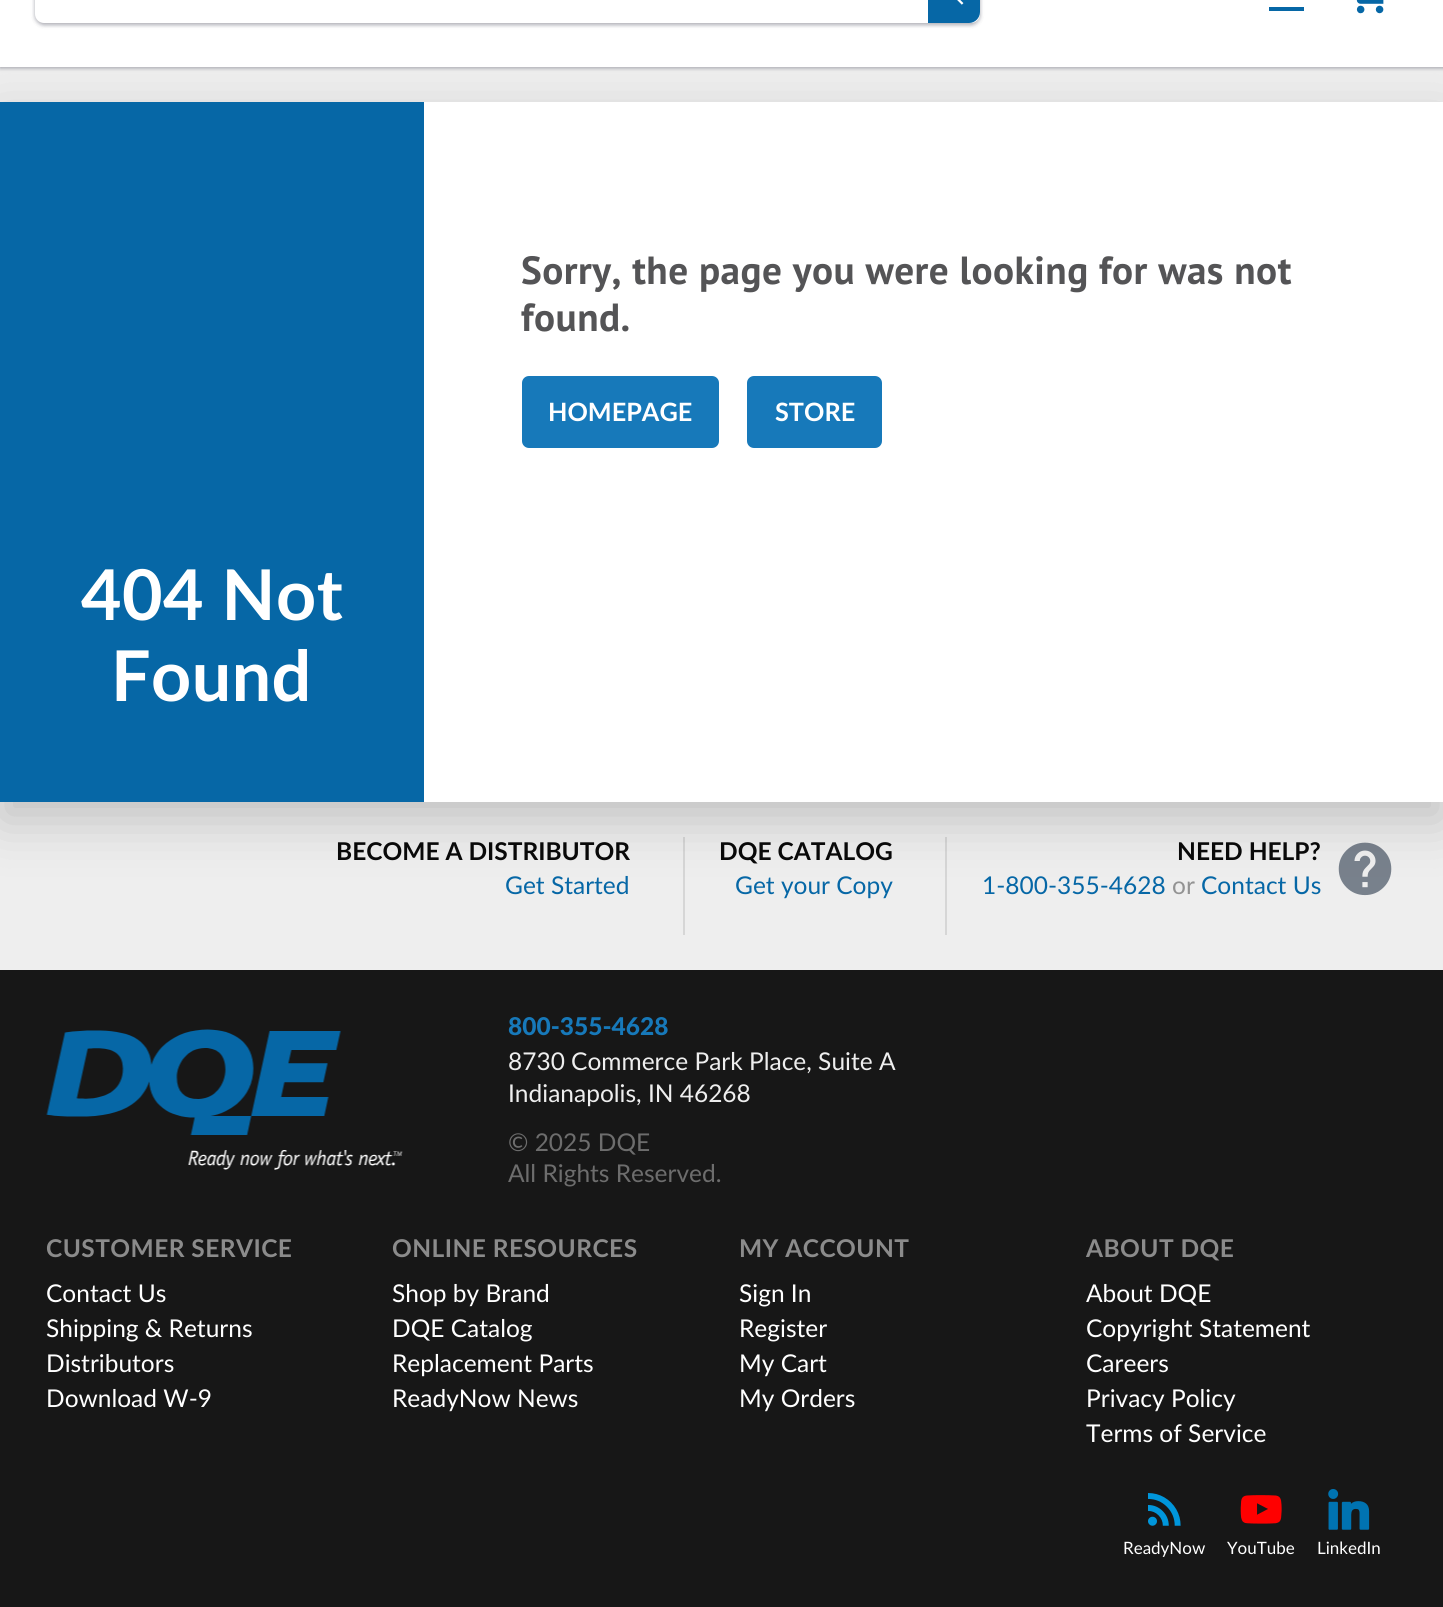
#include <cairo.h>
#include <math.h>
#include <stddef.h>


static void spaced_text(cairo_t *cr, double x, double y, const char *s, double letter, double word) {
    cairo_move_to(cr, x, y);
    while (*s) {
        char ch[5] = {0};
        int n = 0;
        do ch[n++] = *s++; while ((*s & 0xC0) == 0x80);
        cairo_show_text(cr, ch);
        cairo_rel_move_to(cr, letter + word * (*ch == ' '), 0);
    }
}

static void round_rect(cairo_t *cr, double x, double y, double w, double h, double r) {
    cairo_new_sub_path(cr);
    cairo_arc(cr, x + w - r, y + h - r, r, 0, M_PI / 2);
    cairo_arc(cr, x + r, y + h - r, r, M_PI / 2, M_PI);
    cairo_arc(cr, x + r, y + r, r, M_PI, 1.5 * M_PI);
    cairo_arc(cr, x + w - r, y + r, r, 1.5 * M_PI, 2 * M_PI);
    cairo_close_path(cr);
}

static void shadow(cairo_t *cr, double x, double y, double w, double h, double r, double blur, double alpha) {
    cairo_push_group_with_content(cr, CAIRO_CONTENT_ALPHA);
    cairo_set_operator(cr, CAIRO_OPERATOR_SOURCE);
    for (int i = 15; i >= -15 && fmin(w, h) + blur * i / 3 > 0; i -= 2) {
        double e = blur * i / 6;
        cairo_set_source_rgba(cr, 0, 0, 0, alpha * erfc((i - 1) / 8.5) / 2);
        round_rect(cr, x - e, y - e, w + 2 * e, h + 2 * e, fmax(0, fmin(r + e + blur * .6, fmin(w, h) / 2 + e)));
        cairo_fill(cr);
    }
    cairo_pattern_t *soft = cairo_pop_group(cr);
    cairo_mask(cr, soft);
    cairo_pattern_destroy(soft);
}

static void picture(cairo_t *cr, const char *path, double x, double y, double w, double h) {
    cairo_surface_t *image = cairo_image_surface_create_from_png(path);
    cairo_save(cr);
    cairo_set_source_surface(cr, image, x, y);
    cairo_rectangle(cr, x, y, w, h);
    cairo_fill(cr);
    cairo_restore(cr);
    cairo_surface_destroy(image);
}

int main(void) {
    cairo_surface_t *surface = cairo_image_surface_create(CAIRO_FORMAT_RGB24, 1443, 1607);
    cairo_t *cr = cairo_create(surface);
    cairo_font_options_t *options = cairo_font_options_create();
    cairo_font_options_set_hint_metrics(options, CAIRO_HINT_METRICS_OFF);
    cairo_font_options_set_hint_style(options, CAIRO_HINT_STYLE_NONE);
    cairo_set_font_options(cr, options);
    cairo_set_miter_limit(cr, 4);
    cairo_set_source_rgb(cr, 0.933, 0.933, 0.933);
    cairo_paint(cr);
    cairo_set_source_rgb(cr, 0.02, 0.024, 0.114);
    shadow(cr, 0, -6, 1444, 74, 0, 2, 0.24);
    shadow(cr, 0, -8, 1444, 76, 0, 2.5, 0.12);
    cairo_set_source_rgb(cr, 0.839, 0.839, 0.839);
    cairo_rectangle(cr, 683, 837, 2, 98);
    cairo_fill(cr);
    cairo_rectangle(cr, 945, 837, 2, 98);
    cairo_fill(cr);
    picture(cr, "img3.png", 1338, 842, 54, 54);
    cairo_set_source_rgb(cr, 0, 0, 0);
    shadow(cr, 0, 121, 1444, 700, 0, 26, 0.19);
    cairo_set_source_rgb(cr, 1, 1, 1);
    cairo_rectangle(cr, 0, 0, 1443, 67);
    cairo_fill(cr);
    cairo_set_source_rgb(cr, 0.02, 0.024, 0.114);
    shadow(cr, 35, -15, 945, 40, 9, 2, 0.24);
    shadow(cr, 35, -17, 945, 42, 9, 2.5, 0.12);
    cairo_set_source_rgb(cr, 1, 1, 1);
    round_rect(cr, 35, -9, 945, 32, 9);
    cairo_fill(cr);
    cairo_set_source_rgb(cr, 0.024, 0.404, 0.651);
    cairo_new_path(cr);
    cairo_move_to(cr, 928, -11);
    cairo_line_to(cr, 969, -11);
    cairo_curve_to(cr, 975, -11, 980, -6, 980, 0);
    cairo_line_to(cr, 980, 12);
    cairo_curve_to(cr, 980, 18, 975, 23, 969, 23);
    cairo_line_to(cr, 928, 23);
    cairo_close_path(cr);
    cairo_fill(cr);
    picture(cr, "img1.png", 957, 0, 7, 5);
    cairo_rectangle(cr, 1269, 7, 35, 4);
    cairo_fill(cr);
    picture(cr, "img2.png", 1356, 0, 28, 14);
    cairo_set_source_rgb(cr, 1, 1, 1);
    cairo_rectangle(cr, 424, 102, 1019, 700);
    cairo_fill(cr);
    cairo_select_font_face(cr, "PT Sans", CAIRO_FONT_SLANT_NORMAL, CAIRO_FONT_WEIGHT_BOLD);
    cairo_set_font_size(cr, 39.25);
    cairo_set_source_rgb(cr, 0.329, 0.329, 0.337);
    spaced_text(cr, 521, 284, "Sorry, the page you were looking for was not", 0.45, 0);
    spaced_text(cr, 521, 331, "found.", 0.45, 0);
    cairo_set_source_rgb(cr, 0.09, 0.475, 0.729);
    round_rect(cr, 522, 376, 197, 72, 7);
    cairo_fill(cr);
    cairo_select_font_face(cr, "Lato", CAIRO_FONT_SLANT_NORMAL, CAIRO_FONT_WEIGHT_BOLD);
    cairo_set_font_size(cr, 25.25);
    cairo_set_source_rgb(cr, 1, 1, 1);
    cairo_move_to(cr, 548, 421);
    cairo_show_text(cr, "HOMEPAGE");
    cairo_set_source_rgb(cr, 0.09, 0.475, 0.729);
    round_rect(cr, 747, 376, 135, 72, 7);
    cairo_fill(cr);
    cairo_set_source_rgb(cr, 1, 1, 1);
    cairo_move_to(cr, 775, 421);
    cairo_show_text(cr, "STORE");
    cairo_set_source_rgb(cr, 0.024, 0.404, 0.651);
    cairo_rectangle(cr, 0, 102, 424, 700);
    cairo_fill(cr);
    cairo_set_font_size(cr, 70);
    cairo_set_source_rgb(cr, 1, 1, 1);
    spaced_text(cr, 81, 620, "404 Not", 0.45, 0);
    spaced_text(cr, 111, 701, "Found", 0.45, 0);
    cairo_set_font_size(cr, 24.5);
    cairo_set_source_rgb(cr, 0.039, 0.039, 0.039);
    cairo_move_to(cr, 336, 860);
    cairo_show_text(cr, "BECOME A DISTRIBUTOR");
    cairo_select_font_face(cr, "Lato", CAIRO_FONT_SLANT_NORMAL, CAIRO_FONT_WEIGHT_NORMAL);
    cairo_set_source_rgb(cr, 0.024, 0.404, 0.651);
    cairo_move_to(cr, 505, 894);
    cairo_show_text(cr, "Get Started");
    cairo_select_font_face(cr, "Lato", CAIRO_FONT_SLANT_NORMAL, CAIRO_FONT_WEIGHT_BOLD);
    cairo_set_source_rgb(cr, 0.039, 0.039, 0.039);
    cairo_move_to(cr, 719, 860);
    cairo_show_text(cr, "DQE CATALOG");
    cairo_select_font_face(cr, "Lato", CAIRO_FONT_SLANT_NORMAL, CAIRO_FONT_WEIGHT_NORMAL);
    cairo_set_source_rgb(cr, 0.024, 0.404, 0.651);
    cairo_move_to(cr, 735, 894);
    cairo_show_text(cr, "Get your Copy");
    cairo_select_font_face(cr, "Lato", CAIRO_FONT_SLANT_NORMAL, CAIRO_FONT_WEIGHT_BOLD);
    cairo_set_source_rgb(cr, 0.039, 0.039, 0.039);
    cairo_move_to(cr, 1177, 860);
    cairo_show_text(cr, "NEED HELP?");
    cairo_select_font_face(cr, "Lato", CAIRO_FONT_SLANT_NORMAL, CAIRO_FONT_WEIGHT_NORMAL);
    cairo_set_source_rgb(cr, 0.024, 0.404, 0.651);
    cairo_move_to(cr, 982, 894);
    cairo_show_text(cr, "1-800-355-4628");
    cairo_set_source_rgb(cr, 0.576, 0.576, 0.576);
    cairo_move_to(cr, 1172, 894);
    cairo_show_text(cr, "or");
    cairo_set_source_rgb(cr, 0.024, 0.404, 0.651);
    cairo_move_to(cr, 1201, 894);
    cairo_show_text(cr, "Contact Us");
    cairo_set_source_rgb(cr, 0.09, 0.09, 0.09);
    cairo_rectangle(cr, 0, 970, 1443, 637);
    cairo_fill(cr);
    picture(cr, "img4.png", 46, 1029, 357, 141);
    cairo_select_font_face(cr, "Lato Black", CAIRO_FONT_SLANT_NORMAL, CAIRO_FONT_WEIGHT_NORMAL);
    cairo_set_source_rgb(cr, 0.09, 0.475, 0.729);
    cairo_move_to(cr, 508, 1035);
    cairo_show_text(cr, "800-355-4628");
    cairo_select_font_face(cr, "Lato", CAIRO_FONT_SLANT_NORMAL, CAIRO_FONT_WEIGHT_NORMAL);
    cairo_set_source_rgb(cr, 0.933, 0.933, 0.933);
    cairo_move_to(cr, 508, 1070);
    cairo_show_text(cr, "8730 Commerce Park Place, Suite A");
    cairo_move_to(cr, 508, 1102);
    cairo_show_text(cr, "Indianapolis, IN 46268");
    cairo_set_source_rgb(cr, 0.427, 0.427, 0.427);
    cairo_move_to(cr, 508, 1151);
    cairo_show_text(cr, "© 2025 DQE");
    cairo_move_to(cr, 508, 1182);
    cairo_show_text(cr, "All Rights Reserved.");
    cairo_select_font_face(cr, "Lato", CAIRO_FONT_SLANT_NORMAL, CAIRO_FONT_WEIGHT_BOLD);
    cairo_set_source_rgb(cr, 0.545, 0.545, 0.545);
    spaced_text(cr, 46, 1257, "CUSTOMER SERVICE", 0.45, 0);
    cairo_select_font_face(cr, "Lato", CAIRO_FONT_SLANT_NORMAL, CAIRO_FONT_WEIGHT_NORMAL);
    cairo_set_source_rgb(cr, 1, 1, 1);
    cairo_move_to(cr, 46, 1302);
    cairo_show_text(cr, "Contact Us");
    cairo_move_to(cr, 46, 1337);
    cairo_show_text(cr, "Shipping & Returns");
    cairo_move_to(cr, 46, 1372);
    cairo_show_text(cr, "Distributors");
    cairo_move_to(cr, 46, 1407);
    cairo_show_text(cr, "Download W-9");
    cairo_select_font_face(cr, "Lato", CAIRO_FONT_SLANT_NORMAL, CAIRO_FONT_WEIGHT_BOLD);
    cairo_set_source_rgb(cr, 0.545, 0.545, 0.545);
    spaced_text(cr, 392, 1257, "ONLINE RESOURCES", 0.45, 0);
    cairo_select_font_face(cr, "Lato", CAIRO_FONT_SLANT_NORMAL, CAIRO_FONT_WEIGHT_NORMAL);
    cairo_set_source_rgb(cr, 1, 1, 1);
    cairo_move_to(cr, 392, 1302);
    cairo_show_text(cr, "Shop by Brand");
    cairo_move_to(cr, 392, 1337);
    cairo_show_text(cr, "DQE Catalog");
    cairo_move_to(cr, 392, 1372);
    cairo_show_text(cr, "Replacement Parts");
    cairo_move_to(cr, 392, 1407);
    cairo_show_text(cr, "ReadyNow News");
    cairo_select_font_face(cr, "Lato", CAIRO_FONT_SLANT_NORMAL, CAIRO_FONT_WEIGHT_BOLD);
    cairo_set_source_rgb(cr, 0.545, 0.545, 0.545);
    spaced_text(cr, 739, 1257, "MY ACCOUNT", 0.45, 0);
    cairo_select_font_face(cr, "Lato", CAIRO_FONT_SLANT_NORMAL, CAIRO_FONT_WEIGHT_NORMAL);
    cairo_set_source_rgb(cr, 1, 1, 1);
    cairo_move_to(cr, 739, 1302);
    cairo_show_text(cr, "Sign In");
    cairo_move_to(cr, 739, 1337);
    cairo_show_text(cr, "Register");
    cairo_move_to(cr, 739, 1372);
    cairo_show_text(cr, "My Cart");
    cairo_move_to(cr, 739, 1407);
    cairo_show_text(cr, "My Orders");
    cairo_select_font_face(cr, "Lato", CAIRO_FONT_SLANT_NORMAL, CAIRO_FONT_WEIGHT_BOLD);
    cairo_set_source_rgb(cr, 0.545, 0.545, 0.545);
    spaced_text(cr, 1086, 1257, "ABOUT DQE", 0.45, 0);
    cairo_select_font_face(cr, "Lato", CAIRO_FONT_SLANT_NORMAL, CAIRO_FONT_WEIGHT_NORMAL);
    cairo_set_source_rgb(cr, 1, 1, 1);
    cairo_move_to(cr, 1086, 1302);
    cairo_show_text(cr, "About DQE");
    cairo_move_to(cr, 1086, 1337);
    cairo_show_text(cr, "Copyright Statement");
    cairo_move_to(cr, 1086, 1372);
    cairo_show_text(cr, "Careers");
    cairo_move_to(cr, 1086, 1407);
    cairo_show_text(cr, "Privacy Policy");
    cairo_move_to(cr, 1086, 1442);
    cairo_show_text(cr, "Terms of Service");
    picture(cr, "img5.png", 1148, 1493, 33, 33);
    cairo_set_font_size(cr, 17);
    cairo_move_to(cr, 1123, 1554);
    cairo_show_text(cr, "ReadyNow");
    picture(cr, "img6.png", 1240, 1495, 42, 29);
    cairo_move_to(cr, 1227, 1554);
    cairo_show_text(cr, "YouTube");
    picture(cr, "img7.png", 1328, 1489, 42, 41);
    cairo_move_to(cr, 1317, 1554);
    cairo_show_text(cr, "LinkedIn");
    cairo_surface_write_to_png(surface, "page.png");
    cairo_font_options_destroy(options);
    cairo_destroy(cr);
    cairo_surface_destroy(surface);
    return 0;
}
